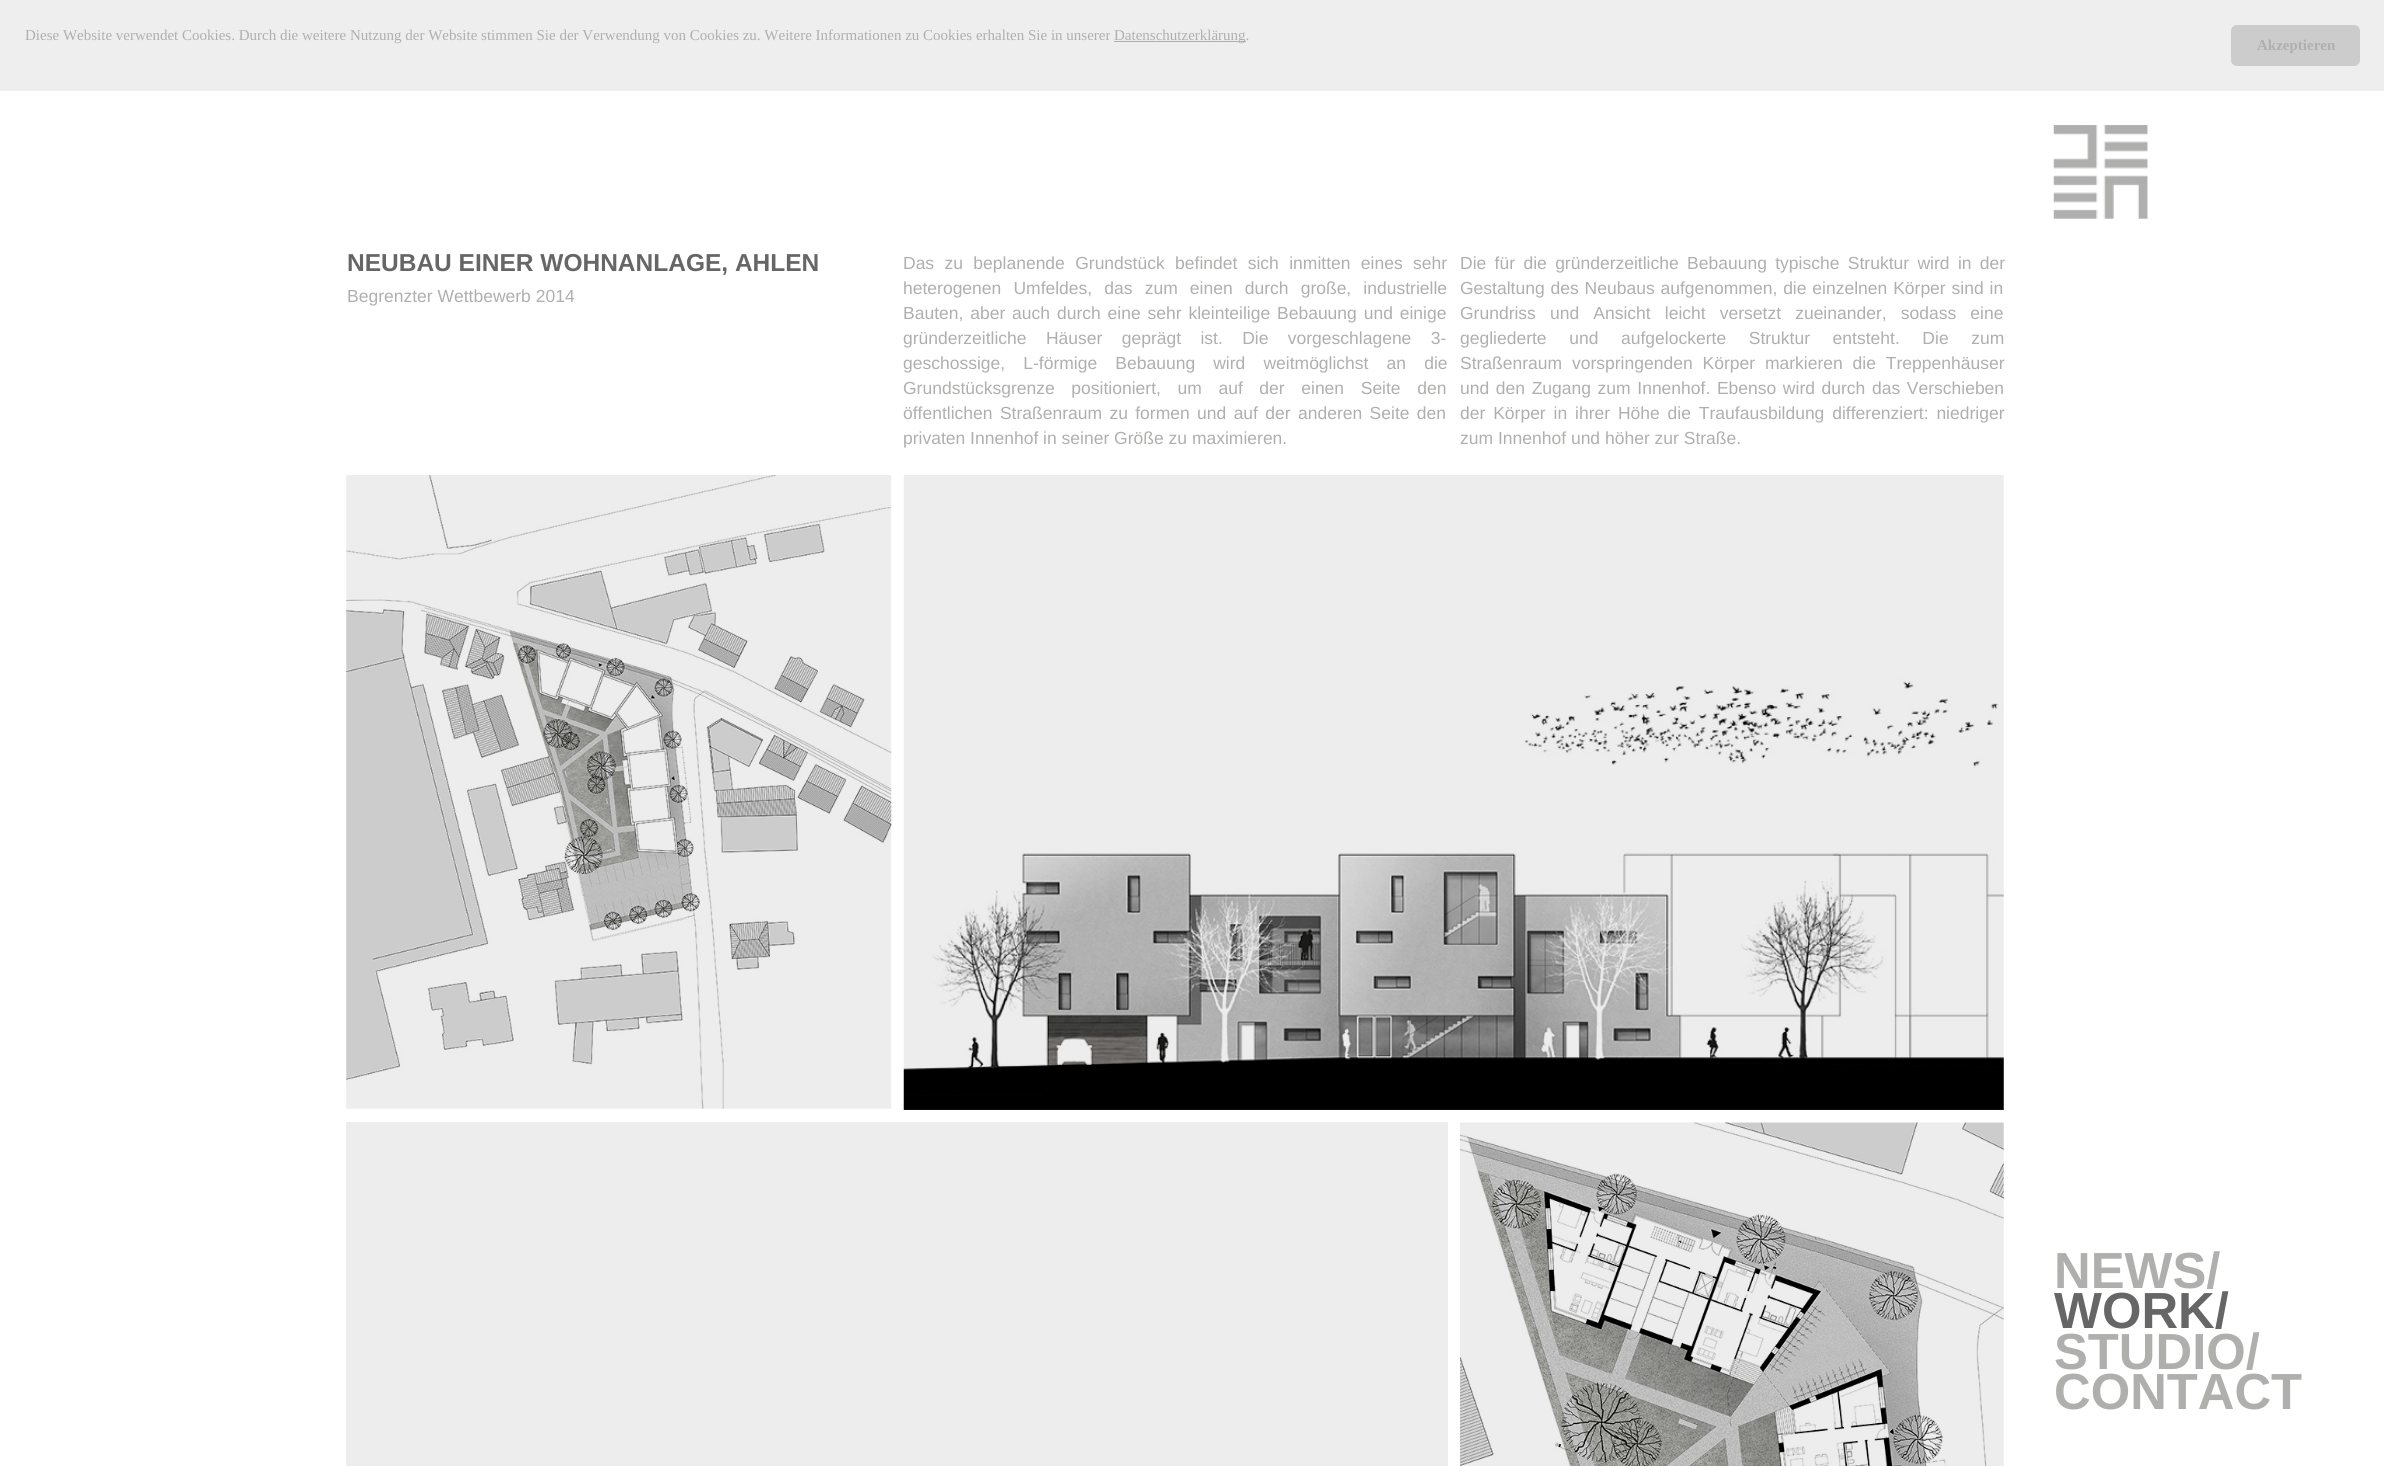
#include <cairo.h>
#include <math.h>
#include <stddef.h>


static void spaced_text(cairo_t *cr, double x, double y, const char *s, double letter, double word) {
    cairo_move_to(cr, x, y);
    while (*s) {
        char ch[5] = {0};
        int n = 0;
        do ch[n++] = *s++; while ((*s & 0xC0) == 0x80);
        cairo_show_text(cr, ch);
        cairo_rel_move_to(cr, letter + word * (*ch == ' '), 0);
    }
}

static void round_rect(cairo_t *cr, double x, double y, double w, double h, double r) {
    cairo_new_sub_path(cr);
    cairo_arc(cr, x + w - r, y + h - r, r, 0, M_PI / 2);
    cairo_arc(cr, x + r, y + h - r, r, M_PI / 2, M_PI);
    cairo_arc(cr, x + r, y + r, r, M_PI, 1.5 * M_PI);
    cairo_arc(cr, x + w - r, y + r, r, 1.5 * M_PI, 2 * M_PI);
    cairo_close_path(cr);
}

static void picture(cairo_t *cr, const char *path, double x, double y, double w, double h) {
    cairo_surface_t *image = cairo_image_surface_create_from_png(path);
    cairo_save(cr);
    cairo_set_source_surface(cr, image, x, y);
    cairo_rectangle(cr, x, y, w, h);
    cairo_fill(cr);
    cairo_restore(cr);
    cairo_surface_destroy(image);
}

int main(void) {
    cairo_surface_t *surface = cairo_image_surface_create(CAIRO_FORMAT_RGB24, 2384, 1466);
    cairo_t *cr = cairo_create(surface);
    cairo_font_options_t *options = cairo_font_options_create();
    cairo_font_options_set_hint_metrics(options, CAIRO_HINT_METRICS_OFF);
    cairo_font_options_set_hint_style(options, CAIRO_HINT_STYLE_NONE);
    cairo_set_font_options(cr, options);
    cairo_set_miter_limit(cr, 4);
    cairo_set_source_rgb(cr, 1, 1, 1);
    cairo_paint(cr);
    cairo_set_source_rgb(cr, 0.933, 0.933, 0.933);
    cairo_rectangle(cr, 0, 0, 2384, 91);
    cairo_fill(cr);
    cairo_select_font_face(cr, "Liberation Serif", CAIRO_FONT_SLANT_NORMAL, CAIRO_FONT_WEIGHT_NORMAL);
    cairo_set_font_size(cr, 15);
    cairo_set_source_rgb(cr, 0.686, 0.686, 0.682);
    cairo_move_to(cr, 25, 40);
    cairo_show_text(cr, "Diese Website verwendet Cookies. Durch die weitere Nutzung der Website stimmen Sie der Verwendung von Cookies zu. Weitere Informationen zu Cookies erhalten Sie in unserer");
    cairo_rectangle(cr, 1114, 41, 132, 1);
    cairo_fill(cr);
    cairo_move_to(cr, 1114, 40);
    cairo_show_text(cr, "Datenschutzerklärung.");
    cairo_set_source_rgb(cr, 0.8, 0.8, 0.8);
    round_rect(cr, 2231, 25, 129, 41, 6);
    cairo_fill(cr);
    cairo_select_font_face(cr, "Liberation Serif", CAIRO_FONT_SLANT_NORMAL, CAIRO_FONT_WEIGHT_BOLD);
    cairo_set_source_rgb(cr, 0.686, 0.686, 0.682);
    cairo_move_to(cr, 2257, 50);
    cairo_show_text(cr, "Akzeptieren");
    cairo_select_font_face(cr, "Liberation Sans", CAIRO_FONT_SLANT_NORMAL, CAIRO_FONT_WEIGHT_BOLD);
    cairo_set_font_size(cr, 24.5);
    cairo_set_source_rgb(cr, 0.4, 0.4, 0.4);
    cairo_move_to(cr, 347, 271);
    cairo_show_text(cr, "NEUBAU EINER WOHNANLAGE, AHLEN");
    cairo_select_font_face(cr, "Liberation Sans", CAIRO_FONT_SLANT_NORMAL, CAIRO_FONT_WEIGHT_NORMAL);
    cairo_set_font_size(cr, 17.5);
    cairo_set_source_rgb(cr, 0.686, 0.686, 0.682);
    cairo_move_to(cr, 347, 302);
    cairo_show_text(cr, "Begrenzter Wettbewerb 2014");
    spaced_text(cr, 903, 269, "Das zu beplanende Grundstück befindet sich inmitten eines sehr", 0, 5.5);
    spaced_text(cr, 903, 294, "heterogenen Umfeldes, das zum einen durch große, industrielle", 0, 7.25);
    spaced_text(cr, 903, 319, "Bauten, aber auch durch eine sehr kleinteilige Bebauung und einige", 0, 2);
    spaced_text(cr, 903, 344, "gründerzeitliche Häuser geprägt ist. Die vorgeschlagene 3-", 0, 14.5);
    spaced_text(cr, 903, 369, "geschossige, L-förmige Bebauung wird weitmöglichst an die", 0, 13.25);
    spaced_text(cr, 903, 394, "Grundstücksgrenze positioniert, um auf der einen Seite den", 0, 11.75);
    spaced_text(cr, 903, 419, "öffentlichen Straßenraum zu formen und auf der anderen Seite den", 0, 2.5);
    cairo_move_to(cr, 903, 444);
    cairo_show_text(cr, "privaten Innenhof in seiner Größe zu maximieren.");
    spaced_text(cr, 1460, 269, "Die für die gründerzeitliche Bebauung typische Struktur wird in der", 0, 3.5);
    spaced_text(cr, 1460, 294, "Gestaltung des Neubaus aufgenommen, die einzelnen Körper sind in", 0, 1);
    spaced_text(cr, 1460, 319, "Grundriss und Ansicht leicht versetzt zueinander, sodass eine", 0, 9.25);
    spaced_text(cr, 1460, 344, "gegliederte und aufgelockerte Struktur entsteht. Die zum", 0, 17.75);
    spaced_text(cr, 1460, 369, "Straßenraum vorspringenden Körper markieren die Treppenhäuser", 0, 5);
    spaced_text(cr, 1460, 394, "und den Zugang zum Innenhof. Ebenso wird durch das Verschieben", 0, 1.75);
    spaced_text(cr, 1460, 419, "der Körper in ihrer Höhe die Traufausbildung differenziert: niedriger", 0, 3);
    cairo_move_to(cr, 1460, 444);
    cairo_show_text(cr, "zum Innenhof und höher zur Straße.");
    picture(cr, "img1.png", 346, 475, 546, 634);
    picture(cr, "img2.png", 903, 475, 1101, 635);
    cairo_set_source_rgb(cr, 0.929, 0.929, 0.929);
    cairo_rectangle(cr, 346, 1122, 1102, 344);
    cairo_fill(cr);
    picture(cr, "img3.png", 1460, 1122, 544, 344);
    picture(cr, "img4.png", 2053, 125, 95, 94);
    cairo_select_font_face(cr, "Liberation Sans", CAIRO_FONT_SLANT_NORMAL, CAIRO_FONT_WEIGHT_BOLD);
    cairo_set_font_size(cr, 50.75);
    cairo_set_source_rgb(cr, 0.686, 0.686, 0.682);
    cairo_move_to(cr, 2054, 1288);
    cairo_show_text(cr, "NEWS/");
    cairo_set_source_rgb(cr, 0.4, 0.4, 0.4);
    cairo_move_to(cr, 2054, 1328);
    cairo_show_text(cr, "WORK/");
    cairo_set_source_rgb(cr, 0.686, 0.686, 0.682);
    cairo_move_to(cr, 2054, 1369);
    cairo_show_text(cr, "STUDIO/");
    cairo_move_to(cr, 2054, 1409);
    cairo_show_text(cr, "CONTACT");
    cairo_surface_write_to_png(surface, "page.png");
    cairo_font_options_destroy(options);
    cairo_destroy(cr);
    cairo_surface_destroy(surface);
    return 0;
}
